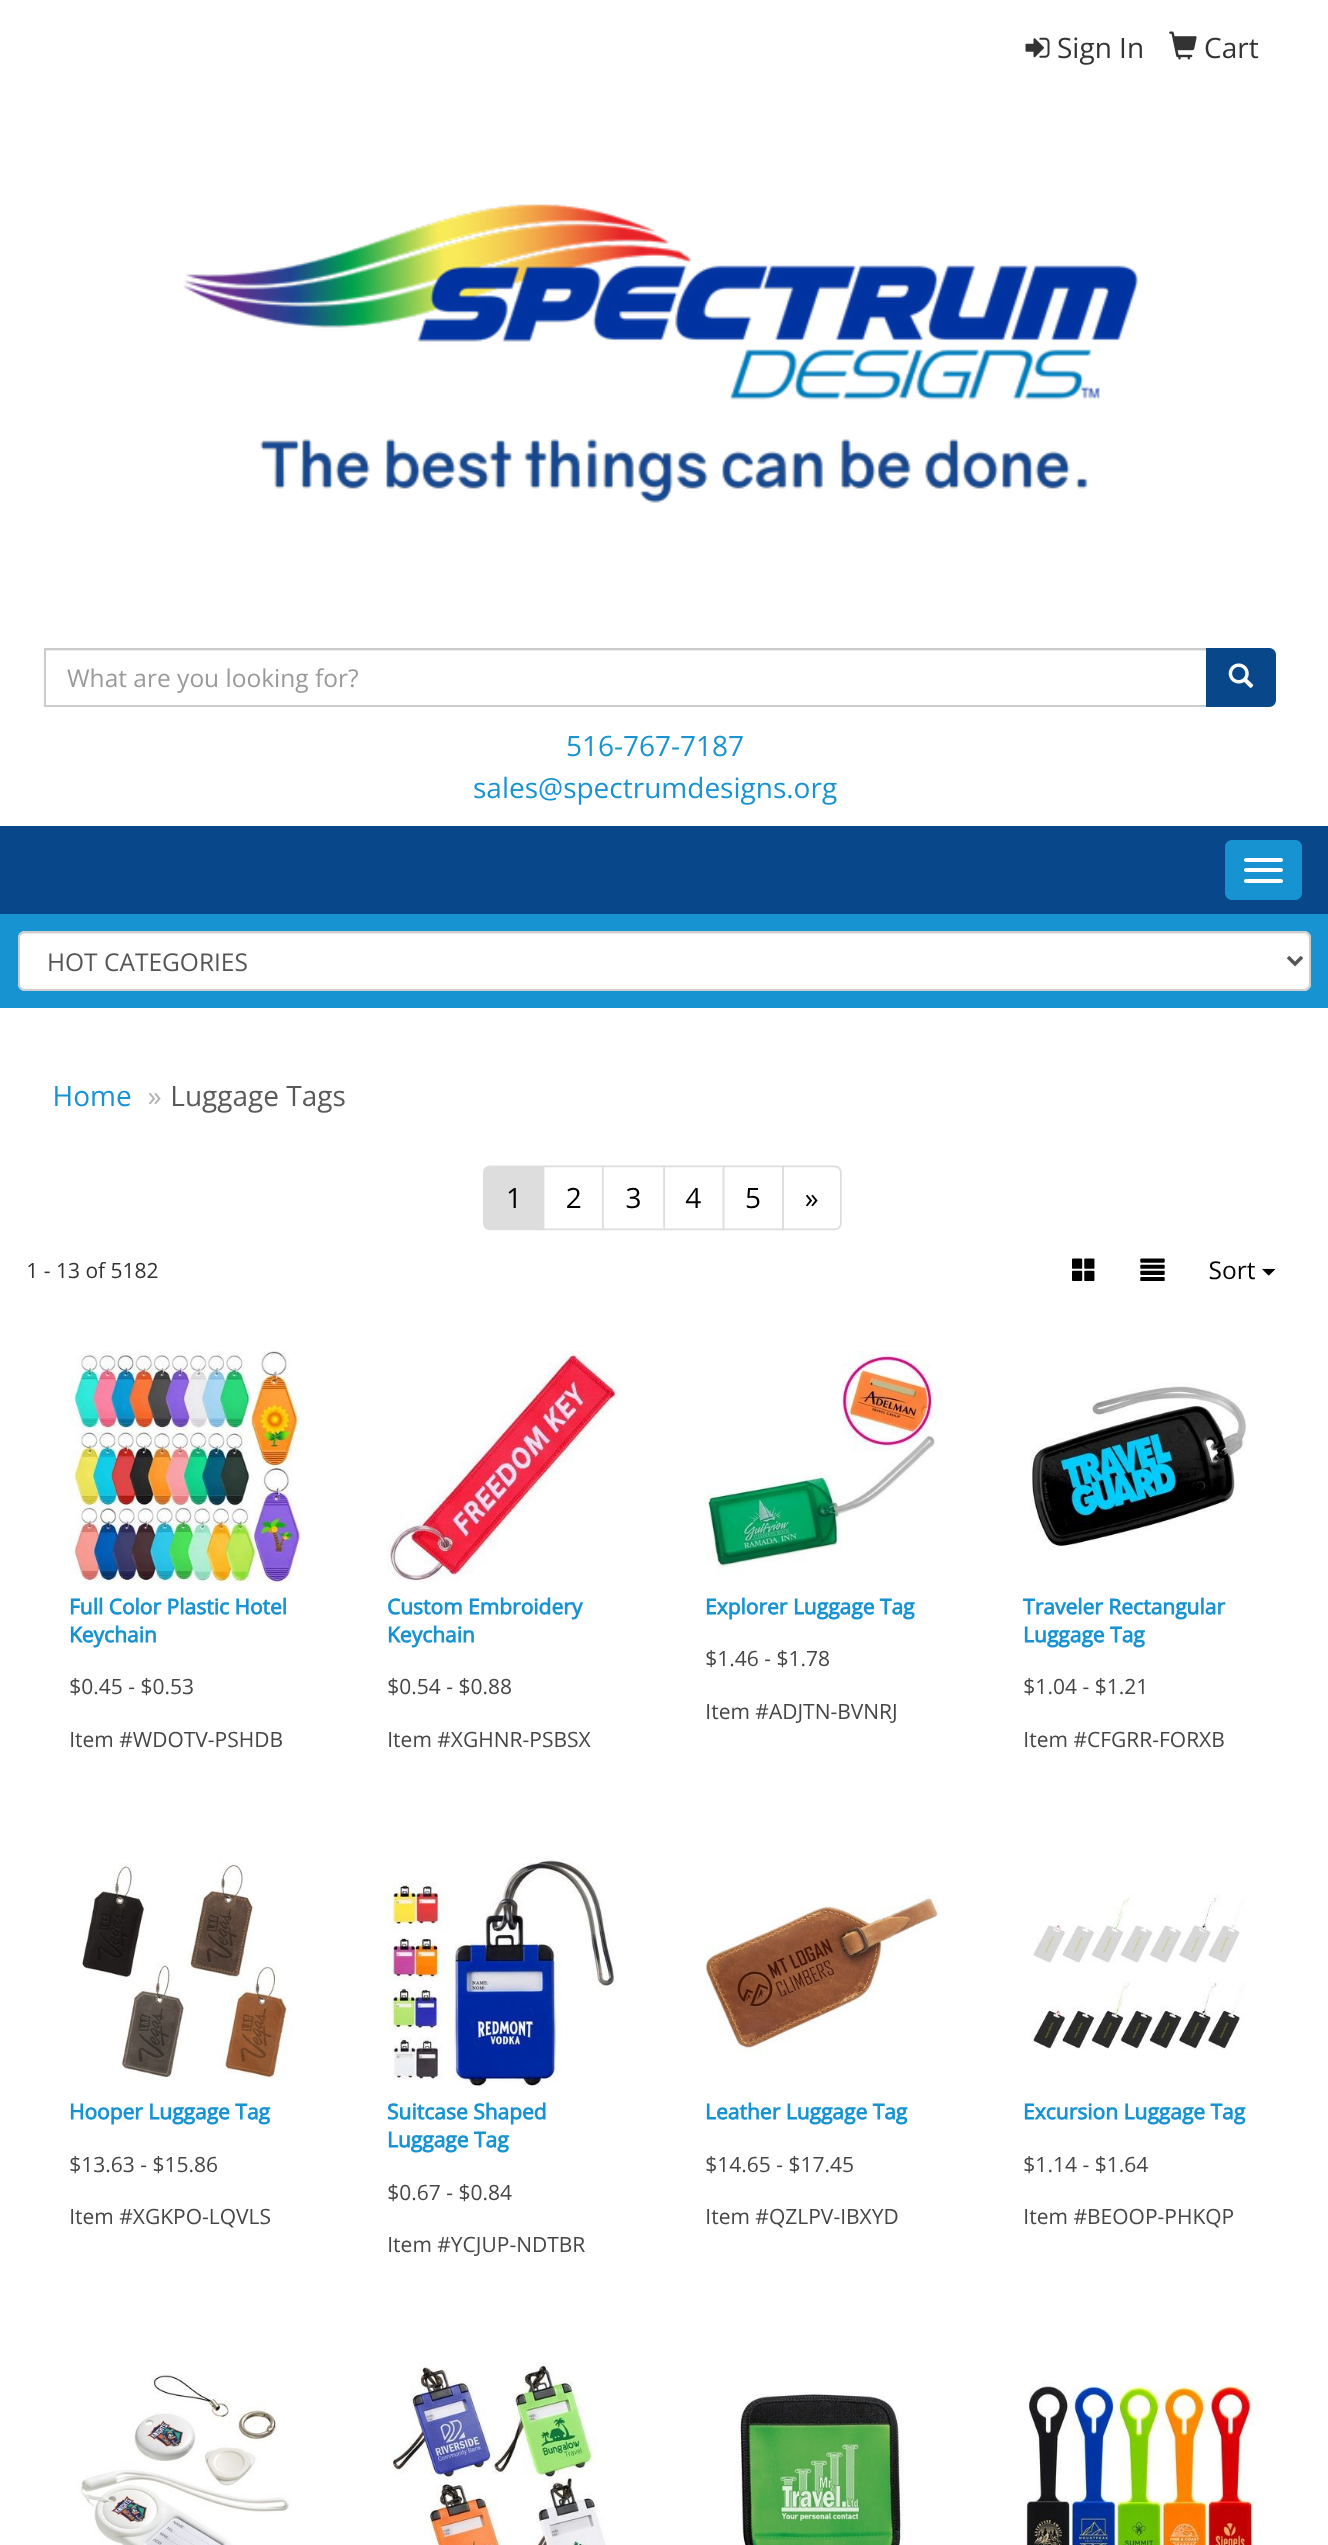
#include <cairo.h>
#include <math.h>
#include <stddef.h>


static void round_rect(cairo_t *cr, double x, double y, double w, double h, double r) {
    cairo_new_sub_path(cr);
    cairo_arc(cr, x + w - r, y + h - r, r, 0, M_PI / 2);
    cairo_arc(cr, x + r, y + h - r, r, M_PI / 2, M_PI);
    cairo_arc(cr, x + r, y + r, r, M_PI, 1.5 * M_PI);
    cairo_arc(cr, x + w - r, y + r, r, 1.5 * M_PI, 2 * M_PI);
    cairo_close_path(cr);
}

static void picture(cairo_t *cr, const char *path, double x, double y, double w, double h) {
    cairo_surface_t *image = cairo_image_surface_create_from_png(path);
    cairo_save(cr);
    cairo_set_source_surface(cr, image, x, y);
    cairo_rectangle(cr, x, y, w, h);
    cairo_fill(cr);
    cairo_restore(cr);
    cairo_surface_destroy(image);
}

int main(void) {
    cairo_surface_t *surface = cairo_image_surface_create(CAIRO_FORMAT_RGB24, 1328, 2545);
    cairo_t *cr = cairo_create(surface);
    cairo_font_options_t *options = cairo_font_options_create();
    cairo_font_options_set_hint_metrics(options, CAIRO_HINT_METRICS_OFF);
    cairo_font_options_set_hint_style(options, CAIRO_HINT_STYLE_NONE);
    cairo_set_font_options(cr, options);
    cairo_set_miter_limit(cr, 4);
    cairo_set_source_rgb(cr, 1, 1, 1);
    cairo_paint(cr);
    picture(cr, "img1.png", 1025, 37, 25, 21);
    cairo_select_font_face(cr, "Open Sans", CAIRO_FONT_SLANT_NORMAL, CAIRO_FONT_WEIGHT_NORMAL);
    cairo_set_font_size(cr, 28);
    cairo_set_source_rgb(cr, 0.2, 0.2, 0.2);
    cairo_move_to(cr, 1057, 58);
    cairo_show_text(cr, "Sign In");
    picture(cr, "img2.png", 1169, 31, 28, 29);
    cairo_move_to(cr, 1204, 58);
    cairo_show_text(cr, "Cart");
    picture(cr, "img3.png", 183, 204, 955, 299);
    cairo_set_source_rgb(cr, 0.925, 0.925, 0.925);
    cairo_rectangle(cr, 46, 650, 1160, 1);
    cairo_fill(cr);
    cairo_rectangle(cr, 45, 649, 1162, 57);
    cairo_set_source_rgb(cr, 0.8, 0.8, 0.8);
    cairo_stroke(cr);
    cairo_set_font_size(cr, 24.5);
    cairo_set_source_rgb(cr, 0.6, 0.6, 0.6);
    cairo_move_to(cr, 67, 687);
    cairo_show_text(cr, "What are you looking for?");
    cairo_set_source_rgb(cr, 0.031, 0.278, 0.541);
    cairo_new_path(cr);
    cairo_move_to(cr, 1207, 649);
    cairo_line_to(cr, 1269, 649);
    cairo_curve_to(cr, 1272.5, 649, 1275, 651.5, 1275, 655);
    cairo_line_to(cr, 1275, 700);
    cairo_curve_to(cr, 1275, 703.5, 1272.5, 706, 1269, 706);
    cairo_line_to(cr, 1207, 706);
    cairo_close_path(cr);
    cairo_fill_preserve(cr);
    cairo_stroke(cr);
    picture(cr, "img4.png", 1228, 663, 26, 25);
    cairo_set_font_size(cr, 28);
    cairo_set_source_rgb(cr, 0.094, 0.576, 0.82);
    cairo_move_to(cr, 566, 756);
    cairo_show_text(cr, "516-767-7187");
    cairo_move_to(cr, 473, 798);
    cairo_show_text(cr, "sales@spectrumdesigns.org");
    cairo_set_source_rgb(cr, 0.031, 0.278, 0.541);
    cairo_rectangle(cr, 0, 826, 1328, 88);
    cairo_fill(cr);
    cairo_set_source_rgb(cr, 0.094, 0.576, 0.82);
    round_rect(cr, 1226, 841, 75, 58, 6);
    cairo_fill_preserve(cr);
    cairo_stroke(cr);
    cairo_set_source_rgb(cr, 1, 1, 1);
    round_rect(cr, 1244, 858, 39, 4, 2);
    cairo_fill(cr);
    round_rect(cr, 1244, 868, 39, 4, 2);
    cairo_fill(cr);
    round_rect(cr, 1244, 879, 39, 4, 2);
    cairo_fill(cr);
    cairo_set_source_rgb(cr, 0.094, 0.576, 0.82);
    cairo_rectangle(cr, 0, 914, 1328, 94);
    cairo_fill(cr);
    cairo_set_source_rgb(cr, 1, 1, 1);
    round_rect(cr, 18, 931, 1293, 60, 7);
    cairo_fill(cr);
    cairo_set_source_rgb(cr, 0.925, 0.925, 0.925);
    cairo_new_path(cr);
    cairo_move_to(cr, 24, 934);
    cairo_line_to(cr, 1304, 934);
    cairo_curve_to(cr, 1307, 934, 1309, 937, 1309, 940);
    cairo_line_to(cr, 1309, 938);
    cairo_curve_to(cr, 1309, 935, 1307, 933, 1304, 933);
    cairo_line_to(cr, 24, 933);
    cairo_curve_to(cr, 21, 933, 19, 935, 19, 938);
    cairo_line_to(cr, 19, 940);
    cairo_curve_to(cr, 19, 937, 22, 934, 24, 934);
    cairo_close_path(cr);
    cairo_fill(cr);
    round_rect(cr, 19, 932, 1291, 58, 6);
    cairo_set_source_rgb(cr, 0.8, 0.8, 0.8);
    cairo_stroke(cr);
    cairo_new_path(cr);
    cairo_move_to(cr, 1288, 957);
    cairo_line_to(cr, 1295, 964);
    cairo_line_to(cr, 1302, 957);
    cairo_set_source_rgb(cr, 0.333, 0.333, 0.333);
    cairo_set_line_width(cr, 3.5);
    cairo_stroke(cr);
    cairo_set_font_size(cr, 24.5);
    cairo_move_to(cr, 47, 971);
    cairo_show_text(cr, "HOT CATEGORIES");
    picture(cr, "img5.png", 28, 1086, 1248, 1459);
    cairo_surface_write_to_png(surface, "page.png");
    cairo_font_options_destroy(options);
    cairo_destroy(cr);
    cairo_surface_destroy(surface);
    return 0;
}
